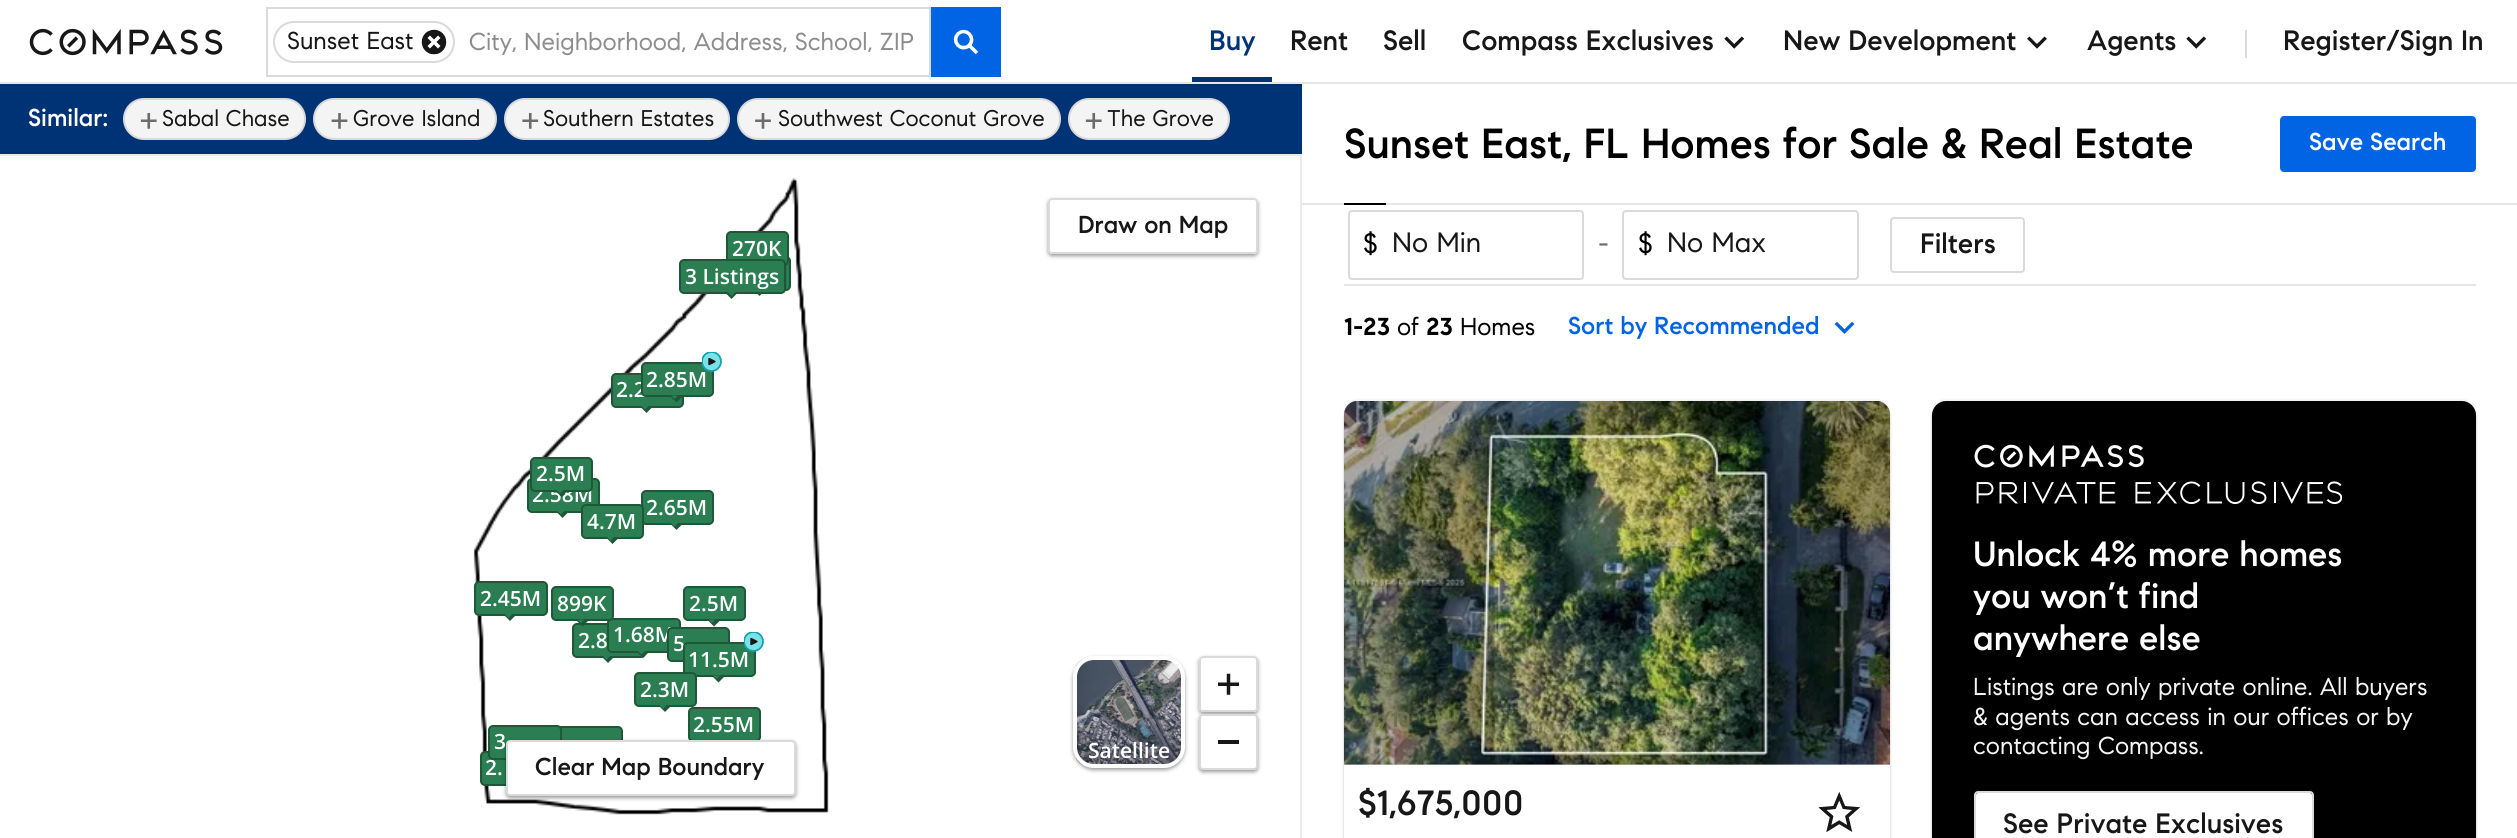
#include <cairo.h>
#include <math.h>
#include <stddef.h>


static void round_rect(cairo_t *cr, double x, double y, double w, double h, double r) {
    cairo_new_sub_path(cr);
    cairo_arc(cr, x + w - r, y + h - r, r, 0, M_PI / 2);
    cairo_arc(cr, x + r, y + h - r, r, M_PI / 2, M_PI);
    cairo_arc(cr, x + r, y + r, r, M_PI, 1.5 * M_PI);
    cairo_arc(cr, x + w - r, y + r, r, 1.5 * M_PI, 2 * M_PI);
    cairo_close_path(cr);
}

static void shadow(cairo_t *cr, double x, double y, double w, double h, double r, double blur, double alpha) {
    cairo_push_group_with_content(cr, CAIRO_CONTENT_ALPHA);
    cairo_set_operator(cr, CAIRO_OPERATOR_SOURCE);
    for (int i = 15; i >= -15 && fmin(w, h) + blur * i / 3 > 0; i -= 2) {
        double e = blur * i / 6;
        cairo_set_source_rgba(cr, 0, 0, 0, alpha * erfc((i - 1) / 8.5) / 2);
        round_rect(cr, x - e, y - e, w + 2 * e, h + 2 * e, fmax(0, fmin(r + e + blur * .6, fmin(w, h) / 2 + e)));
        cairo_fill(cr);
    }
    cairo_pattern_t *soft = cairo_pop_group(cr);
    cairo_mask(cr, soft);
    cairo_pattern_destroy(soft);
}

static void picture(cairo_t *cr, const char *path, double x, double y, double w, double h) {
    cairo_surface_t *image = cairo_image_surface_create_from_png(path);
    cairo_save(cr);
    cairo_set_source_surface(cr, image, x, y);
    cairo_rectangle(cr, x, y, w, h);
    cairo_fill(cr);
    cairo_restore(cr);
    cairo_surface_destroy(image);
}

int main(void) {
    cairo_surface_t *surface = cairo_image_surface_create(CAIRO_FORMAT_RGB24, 2517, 838);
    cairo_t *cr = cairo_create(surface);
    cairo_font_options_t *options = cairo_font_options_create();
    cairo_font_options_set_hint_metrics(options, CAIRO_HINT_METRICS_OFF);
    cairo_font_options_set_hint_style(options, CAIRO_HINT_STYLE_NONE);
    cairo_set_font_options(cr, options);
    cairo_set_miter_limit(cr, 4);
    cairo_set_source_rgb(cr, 1, 1, 1);
    cairo_paint(cr);
    cairo_set_source_rgb(cr, 0.902, 0.902, 0.902);
    cairo_rectangle(cr, 0, 82, 2517, 2);
    cairo_fill(cr);
    picture(cr, "img1.png", 29, 28, 194, 28);
    cairo_rectangle(cr, 267, 8, 663, 68);
    cairo_set_source_rgb(cr, 0.855, 0.855, 0.855);
    cairo_stroke(cr);
    round_rect(cr, 274, 22, 180, 40, 20);
    cairo_stroke(cr);
    cairo_select_font_face(cr, "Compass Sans", CAIRO_FONT_SLANT_NORMAL, CAIRO_FONT_WEIGHT_NORMAL);
    cairo_set_font_size(cr, 24.5);
    cairo_set_source_rgb(cr, 0.09, 0.09, 0.09);
    cairo_move_to(cr, 287, 49);
    cairo_show_text(cr, "Sunset East");
    picture(cr, "img2.png", 421, 29, 26, 26);
    cairo_set_source_rgb(cr, 0.553, 0.553, 0.553);
    cairo_move_to(cr, 469, 50);
    cairo_show_text(cr, "City, Neighborhood, Address, School, ZIP");
    cairo_set_source_rgb(cr, 0, 0.392, 0.898);
    cairo_rectangle(cr, 931, 7, 70, 70);
    cairo_fill(cr);
    picture(cr, "img3.png", 953, 29, 26, 26);
    cairo_set_source_rgb(cr, 0, 0.2, 0.459);
    cairo_rectangle(cr, 1192, 77, 80, 5);
    cairo_fill(cr);
    cairo_select_font_face(cr, "Compass Sans Medium", CAIRO_FONT_SLANT_NORMAL, CAIRO_FONT_WEIGHT_NORMAL);
    cairo_set_font_size(cr, 28);
    cairo_move_to(cr, 1209, 50);
    cairo_show_text(cr, "Buy");
    cairo_set_source_rgb(cr, 0.09, 0.09, 0.09);
    cairo_move_to(cr, 1290, 50);
    cairo_show_text(cr, "Rent");
    cairo_move_to(cr, 1383, 50);
    cairo_show_text(cr, "Sell");
    cairo_move_to(cr, 1462, 50);
    cairo_show_text(cr, "Compass Exclusives");
    picture(cr, "img4.png", 1724, 36, 21, 13);
    cairo_move_to(cr, 1783, 50);
    cairo_show_text(cr, "New Development");
    picture(cr, "img5.png", 2027, 36, 20, 13);
    cairo_move_to(cr, 2087, 50);
    cairo_show_text(cr, "Agents");
    picture(cr, "img4.png", 2186, 36, 21, 13);
    cairo_set_source_rgb(cr, 0.863, 0.863, 0.863);
    cairo_rectangle(cr, 2245, 30, 2, 28);
    cairo_fill(cr);
    cairo_set_source_rgb(cr, 0.09, 0.09, 0.09);
    cairo_move_to(cr, 2283, 50);
    cairo_show_text(cr, "Register/Sign In");
    cairo_set_source_rgb(cr, 0, 0.2, 0.459);
    cairo_rectangle(cr, 0, 86, 1302, 68);
    cairo_fill(cr);
    cairo_set_source_rgb(cr, 0, 0.18, 0.412);
    cairo_rectangle(cr, 0, 84, 1302, 2);
    cairo_fill(cr);
    cairo_set_font_size(cr, 24.5);
    cairo_set_source_rgb(cr, 1, 1, 1);
    cairo_move_to(cr, 28, 126);
    cairo_show_text(cr, "Similar:");
    cairo_set_source_rgb(cr, 0.957, 0.957, 0.957);
    round_rect(cr, 124, 99, 181, 40, 20);
    cairo_fill_preserve(cr);
    cairo_set_source_rgb(cr, 0.855, 0.855, 0.855);
    cairo_stroke(cr);
    picture(cr, "img6.png", 140, 113, 17, 16);
    cairo_select_font_face(cr, "Compass Sans", CAIRO_FONT_SLANT_NORMAL, CAIRO_FONT_WEIGHT_NORMAL);
    cairo_set_font_size(cr, 22.75);
    cairo_set_source_rgb(cr, 0.09, 0.09, 0.09);
    cairo_move_to(cr, 162, 126);
    cairo_show_text(cr, "Sabal Chase");
    cairo_set_source_rgb(cr, 0.957, 0.957, 0.957);
    round_rect(cr, 314, 99, 182, 40, 20);
    cairo_fill_preserve(cr);
    cairo_set_source_rgb(cr, 0.855, 0.855, 0.855);
    cairo_stroke(cr);
    picture(cr, "img7.png", 331, 113, 17, 16);
    cairo_set_source_rgb(cr, 0.09, 0.09, 0.09);
    cairo_move_to(cr, 353, 126);
    cairo_show_text(cr, "Grove Island");
    cairo_set_source_rgb(cr, 0.957, 0.957, 0.957);
    round_rect(cr, 505, 99, 224, 40, 20);
    cairo_fill_preserve(cr);
    cairo_set_source_rgb(cr, 0.855, 0.855, 0.855);
    cairo_stroke(cr);
    picture(cr, "img8.png", 522, 113, 17, 16);
    cairo_set_source_rgb(cr, 0.09, 0.09, 0.09);
    cairo_move_to(cr, 543, 126);
    cairo_show_text(cr, "Southern Estates");
    cairo_set_source_rgb(cr, 0.957, 0.957, 0.957);
    round_rect(cr, 738, 99, 322, 40, 20);
    cairo_fill_preserve(cr);
    cairo_set_source_rgb(cr, 0.855, 0.855, 0.855);
    cairo_stroke(cr);
    picture(cr, "img9.png", 755, 113, 16, 16);
    cairo_set_source_rgb(cr, 0.09, 0.09, 0.09);
    cairo_move_to(cr, 778, 126);
    cairo_show_text(cr, "Southwest Coconut Grove");
    cairo_set_source_rgb(cr, 0.957, 0.957, 0.957);
    round_rect(cr, 1069, 99, 160, 40, 20);
    cairo_fill_preserve(cr);
    cairo_set_source_rgb(cr, 0.855, 0.855, 0.855);
    cairo_stroke(cr);
    picture(cr, "img6.png", 1085, 113, 17, 16);
    cairo_set_source_rgb(cr, 0.09, 0.09, 0.09);
    cairo_move_to(cr, 1107, 126);
    cairo_show_text(cr, "The Grove");
    cairo_set_source_rgb(cr, 0.922, 0.922, 0.922);
    cairo_new_path(cr);
    cairo_move_to(cr, 0, 154);
    cairo_line_to(cr, 1302, 154);
    cairo_line_to(cr, 1300, 156);
    cairo_line_to(cr, 0, 156);
    cairo_close_path(cr);
    cairo_fill(cr);
    cairo_set_source_rgba(cr, 0, 0, 0, 0.08);
    cairo_new_path(cr);
    cairo_move_to(cr, 1302, 154);
    cairo_line_to(cr, 1302, 838);
    cairo_line_to(cr, 1300, 838);
    cairo_line_to(cr, 1300, 156);
    cairo_close_path(cr);
    cairo_fill(cr);
    cairo_save(cr);
    cairo_set_fill_rule(cr, CAIRO_FILL_RULE_EVEN_ODD);
    cairo_new_path(cr);
    cairo_move_to(cr, 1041, 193);
    cairo_line_to(cr, 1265, 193);
    cairo_line_to(cr, 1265, 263);
    cairo_line_to(cr, 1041, 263);
    cairo_close_path(cr);
    cairo_move_to(cr, 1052, 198);
    cairo_line_to(cr, 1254, 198);
    cairo_curve_to(cr, 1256, 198, 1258, 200, 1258, 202);
    cairo_line_to(cr, 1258, 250);
    cairo_curve_to(cr, 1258, 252, 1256, 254, 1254, 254);
    cairo_line_to(cr, 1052, 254);
    cairo_curve_to(cr, 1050, 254, 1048, 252, 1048, 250);
    cairo_line_to(cr, 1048, 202);
    cairo_curve_to(cr, 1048, 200, 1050, 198, 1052, 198);
    cairo_close_path(cr);
    cairo_clip(cr);
    cairo_set_source_rgb(cr, 0, 0, 0);
    shadow(cr, 1048, 200, 210, 56, 4, 2, 0.4);
    cairo_restore(cr);
    round_rect(cr, 1049, 199, 208, 54, 3);
    cairo_set_source_rgb(cr, 0.855, 0.855, 0.855);
    cairo_stroke(cr);
    cairo_select_font_face(cr, "Compass Sans Medium", CAIRO_FONT_SLANT_NORMAL, CAIRO_FONT_WEIGHT_NORMAL);
    cairo_set_font_size(cr, 24.5);
    cairo_set_source_rgb(cr, 0.09, 0.09, 0.09);
    cairo_move_to(cr, 1078, 233);
    cairo_show_text(cr, "Draw on Map");
    cairo_set_source_rgb(cr, 0, 0, 0);
    shadow(cr, 1073, 658, 112, 112, 21, 2, 0.4);
    picture(cr, "img10.png", 1076, 659, 106, 106);
    round_rect(cr, 1075, 658, 108, 108, 19);
    cairo_set_source_rgb(cr, 1, 1, 1);
    cairo_set_line_width(cr, 4);
    cairo_stroke(cr);
    cairo_select_font_face(cr, "Open Sans SemiBold", CAIRO_FONT_SLANT_NORMAL, CAIRO_FONT_WEIGHT_NORMAL);
    cairo_set_font_size(cr, 21);
    cairo_move_to(cr, 1088, 758);
    cairo_show_text(cr, "Satellite");
    cairo_save(cr);
    cairo_set_fill_rule(cr, CAIRO_FILL_RULE_EVEN_ODD);
    cairo_new_path(cr);
    cairo_move_to(cr, 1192, 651);
    cairo_line_to(cr, 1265, 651);
    cairo_line_to(cr, 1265, 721);
    cairo_line_to(cr, 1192, 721);
    cairo_close_path(cr);
    cairo_move_to(cr, 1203, 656);
    cairo_line_to(cr, 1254, 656);
    cairo_curve_to(cr, 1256, 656, 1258, 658, 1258, 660);
    cairo_line_to(cr, 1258, 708);
    cairo_curve_to(cr, 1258, 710, 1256, 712, 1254, 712);
    cairo_line_to(cr, 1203, 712);
    cairo_curve_to(cr, 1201, 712, 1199, 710, 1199, 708);
    cairo_line_to(cr, 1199, 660);
    cairo_curve_to(cr, 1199, 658, 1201, 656, 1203, 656);
    cairo_close_path(cr);
    cairo_clip(cr);
    cairo_set_source_rgb(cr, 0, 0, 0);
    shadow(cr, 1199, 658, 59, 56, 4, 2, 0.4);
    cairo_restore(cr);
    round_rect(cr, 1200, 657, 57, 54, 3);
    cairo_set_source_rgb(cr, 0.855, 0.855, 0.855);
    cairo_set_line_width(cr, 2);
    cairo_stroke(cr);
    picture(cr, "img11.png", 1218, 673, 21, 22);
    cairo_set_source_rgb(cr, 0, 0, 0);
    shadow(cr, 1199, 716, 59, 56, 4, 2, 0.4);
    cairo_set_source_rgb(cr, 1, 1, 1);
    round_rect(cr, 1200, 715, 57, 54, 3);
    cairo_fill_preserve(cr);
    cairo_set_source_rgb(cr, 0.855, 0.855, 0.855);
    cairo_stroke(cr);
    cairo_set_source_rgb(cr, 0.09, 0.09, 0.09);
    cairo_rectangle(cr, 1218, 740, 21, 4);
    cairo_fill(cr);
    picture(cr, "img12.png", 473, 178, 356, 637);
    cairo_set_source_rgb(cr, 0.165, 0.494, 0.318);
    round_rect(cr, 481, 752, 71, 33, 4);
    cairo_fill_preserve(cr);
    cairo_set_source_rgb(cr, 0.118, 0.345, 0.224);
    cairo_stroke(cr);
    cairo_set_source_rgb(cr, 0.165, 0.494, 0.318);
    round_rect(cr, 551, 727, 71, 33, 4);
    cairo_fill_preserve(cr);
    cairo_set_source_rgb(cr, 0.118, 0.345, 0.224);
    cairo_stroke(cr);
    cairo_set_source_rgb(cr, 1, 1, 1);
    cairo_move_to(cr, 485, 775);
    cairo_show_text(cr, "2.");
    cairo_set_source_rgb(cr, 0.165, 0.494, 0.318);
    round_rect(cr, 489, 726, 72, 33, 4);
    cairo_fill_preserve(cr);
    cairo_set_source_rgb(cr, 0.118, 0.345, 0.224);
    cairo_stroke(cr);
    cairo_set_source_rgb(cr, 0.165, 0.494, 0.318);
    round_rect(cr, 689, 708, 71, 33, 4);
    cairo_fill_preserve(cr);
    cairo_set_source_rgb(cr, 0.118, 0.345, 0.224);
    cairo_stroke(cr);
    cairo_set_source_rgb(cr, 0, 0, 0);
    shadow(cr, 506, 742, 290, 56, 4, 2, 0.4);
    cairo_set_source_rgb(cr, 1, 1, 1);
    round_rect(cr, 507, 741, 288, 54, 3);
    cairo_fill_preserve(cr);
    cairo_set_source_rgb(cr, 0.855, 0.855, 0.855);
    cairo_stroke(cr);
    cairo_select_font_face(cr, "Compass Sans Medium", CAIRO_FONT_SLANT_NORMAL, CAIRO_FONT_WEIGHT_NORMAL);
    cairo_set_font_size(cr, 24.5);
    cairo_set_source_rgb(cr, 0.09, 0.09, 0.09);
    cairo_move_to(cr, 535, 775);
    cairo_show_text(cr, "Clear Map Boundary");
    cairo_set_source_rgb(cr, 0.165, 0.494, 0.318);
    round_rect(cr, 729, 257, 61, 33, 4);
    cairo_fill_preserve(cr);
    cairo_set_source_rgb(cr, 0.118, 0.345, 0.224);
    cairo_stroke(cr);
    cairo_set_source_rgb(cr, 0.165, 0.494, 0.318);
    round_rect(cr, 727, 232, 61, 33, 4);
    cairo_fill_preserve(cr);
    cairo_set_source_rgb(cr, 0.118, 0.345, 0.224);
    cairo_stroke(cr);
    cairo_select_font_face(cr, "Open Sans SemiBold", CAIRO_FONT_SLANT_NORMAL, CAIRO_FONT_WEIGHT_NORMAL);
    cairo_set_font_size(cr, 21);
    cairo_set_source_rgb(cr, 1, 1, 1);
    cairo_move_to(cr, 732, 256);
    cairo_show_text(cr, "270K");
    cairo_set_source_rgb(cr, 0.118, 0.345, 0.224);
    cairo_new_path(cr);
    cairo_move_to(cr, 752.5, 289);
    cairo_line_to(cr, 766.5, 289);
    cairo_line_to(cr, 759.5, 296);
    cairo_close_path(cr);
    cairo_fill(cr);
    cairo_set_source_rgb(cr, 0.165, 0.494, 0.318);
    round_rect(cr, 680, 260, 105, 33, 4);
    cairo_fill_preserve(cr);
    cairo_set_source_rgb(cr, 0.118, 0.345, 0.224);
    cairo_stroke(cr);
    cairo_set_source_rgb(cr, 1, 1, 1);
    cairo_move_to(cr, 685, 284);
    cairo_show_text(cr, "3 Listings");
    cairo_set_source_rgb(cr, 0.118, 0.345, 0.224);
    cairo_new_path(cr);
    cairo_move_to(cr, 724.5, 292);
    cairo_line_to(cr, 738.5, 292);
    cairo_line_to(cr, 731.5, 299);
    cairo_close_path(cr);
    cairo_fill(cr);
    cairo_set_source_rgb(cr, 0.165, 0.494, 0.318);
    cairo_new_path(cr);
    cairo_move_to(cr, 728, 292);
    cairo_line_to(cr, 735, 292);
    cairo_line_to(cr, 731.5, 296);
    cairo_close_path(cr);
    cairo_fill(cr);
    round_rect(cr, 612, 374, 71, 33, 4);
    cairo_fill_preserve(cr);
    cairo_set_source_rgb(cr, 0.118, 0.345, 0.224);
    cairo_stroke(cr);
    cairo_set_source_rgb(cr, 1, 1, 1);
    cairo_move_to(cr, 616, 397);
    cairo_show_text(cr, "2.2");
    cairo_set_source_rgb(cr, 0.118, 0.345, 0.224);
    cairo_new_path(cr);
    cairo_move_to(cr, 639.5, 406);
    cairo_line_to(cr, 653.5, 406);
    cairo_line_to(cr, 646.5, 413);
    cairo_close_path(cr);
    cairo_fill(cr);
    cairo_set_source_rgb(cr, 0.165, 0.494, 0.318);
    cairo_new_path(cr);
    cairo_move_to(cr, 641.5, 406);
    cairo_line_to(cr, 648.5, 406);
    cairo_line_to(cr, 645, 409.5);
    cairo_close_path(cr);
    cairo_fill(cr);
    round_rect(cr, 642, 363, 71, 33, 4);
    cairo_fill_preserve(cr);
    cairo_set_source_rgb(cr, 0.118, 0.345, 0.224);
    cairo_stroke(cr);
    cairo_set_source_rgb(cr, 1, 1, 1);
    cairo_move_to(cr, 646, 387);
    cairo_show_text(cr, "2.85M");
    picture(cr, "img13.png", 702, 352, 20, 20);
    cairo_set_source_rgb(cr, 0.118, 0.345, 0.224);
    cairo_new_path(cr);
    cairo_move_to(cr, 669.5, 395.5);
    cairo_line_to(cr, 683.5, 395.5);
    cairo_line_to(cr, 676.5, 402.5);
    cairo_close_path(cr);
    cairo_fill(cr);
    cairo_set_source_rgb(cr, 0.165, 0.494, 0.318);
    cairo_new_path(cr);
    cairo_move_to(cr, 671, 395.5);
    cairo_line_to(cr, 678, 395.5);
    cairo_line_to(cr, 674.5, 399);
    cairo_close_path(cr);
    cairo_fill(cr);
    round_rect(cr, 528, 479, 71, 33, 4);
    cairo_fill_preserve(cr);
    cairo_set_source_rgb(cr, 0.118, 0.345, 0.224);
    cairo_stroke(cr);
    cairo_set_source_rgb(cr, 1, 1, 1);
    cairo_move_to(cr, 532, 502);
    cairo_show_text(cr, "2.58M");
    cairo_set_source_rgb(cr, 0.165, 0.494, 0.318);
    round_rect(cr, 531, 458, 61, 33, 4);
    cairo_fill_preserve(cr);
    cairo_set_source_rgb(cr, 0.118, 0.345, 0.224);
    cairo_stroke(cr);
    cairo_set_source_rgb(cr, 1, 1, 1);
    cairo_move_to(cr, 536, 481);
    cairo_show_text(cr, "2.5M");
    cairo_set_source_rgb(cr, 0.118, 0.345, 0.224);
    cairo_new_path(cr);
    cairo_move_to(cr, 554.5, 490);
    cairo_line_to(cr, 568.5, 490);
    cairo_line_to(cr, 561.5, 497);
    cairo_close_path(cr);
    cairo_fill(cr);
    cairo_set_source_rgb(cr, 0.165, 0.494, 0.318);
    cairo_new_path(cr);
    cairo_move_to(cr, 556.5, 490);
    cairo_line_to(cr, 563.5, 490);
    cairo_line_to(cr, 560, 493.5);
    cairo_close_path(cr);
    cairo_fill(cr);
    cairo_set_source_rgb(cr, 0.118, 0.345, 0.224);
    cairo_new_path(cr);
    cairo_move_to(cr, 555.5, 511);
    cairo_line_to(cr, 569.5, 511);
    cairo_line_to(cr, 562.5, 518);
    cairo_close_path(cr);
    cairo_fill(cr);
    cairo_set_source_rgb(cr, 0.165, 0.494, 0.318);
    cairo_new_path(cr);
    cairo_move_to(cr, 557.5, 511);
    cairo_line_to(cr, 564.5, 511);
    cairo_line_to(cr, 561, 514.5);
    cairo_close_path(cr);
    cairo_fill(cr);
    round_rect(cr, 642, 491, 71, 33, 4);
    cairo_fill_preserve(cr);
    cairo_set_source_rgb(cr, 0.118, 0.345, 0.224);
    cairo_stroke(cr);
    cairo_set_source_rgb(cr, 1, 1, 1);
    cairo_move_to(cr, 646, 515);
    cairo_show_text(cr, "2.65M");
    cairo_set_source_rgb(cr, 0.118, 0.345, 0.224);
    cairo_new_path(cr);
    cairo_move_to(cr, 669.5, 523);
    cairo_line_to(cr, 683.5, 523);
    cairo_line_to(cr, 676.5, 530);
    cairo_close_path(cr);
    cairo_fill(cr);
    cairo_set_source_rgb(cr, 0.165, 0.494, 0.318);
    cairo_new_path(cr);
    cairo_move_to(cr, 671, 523);
    cairo_line_to(cr, 678, 523);
    cairo_line_to(cr, 674.5, 527);
    cairo_close_path(cr);
    cairo_fill(cr);
    round_rect(cr, 582, 505, 61, 33, 4);
    cairo_fill_preserve(cr);
    cairo_set_source_rgb(cr, 0.118, 0.345, 0.224);
    cairo_stroke(cr);
    cairo_set_source_rgb(cr, 1, 1, 1);
    cairo_move_to(cr, 587, 529);
    cairo_show_text(cr, "4.7M");
    cairo_set_source_rgb(cr, 0.118, 0.345, 0.224);
    cairo_new_path(cr);
    cairo_move_to(cr, 605.5, 537);
    cairo_line_to(cr, 619.5, 537);
    cairo_line_to(cr, 612.5, 544);
    cairo_close_path(cr);
    cairo_fill(cr);
    cairo_set_source_rgb(cr, 0.165, 0.494, 0.318);
    cairo_new_path(cr);
    cairo_move_to(cr, 607, 537);
    cairo_line_to(cr, 614, 537);
    cairo_line_to(cr, 610.5, 541);
    cairo_close_path(cr);
    cairo_fill(cr);
    round_rect(cr, 475, 582, 72, 33, 4);
    cairo_fill_preserve(cr);
    cairo_set_source_rgb(cr, 0.118, 0.345, 0.224);
    cairo_stroke(cr);
    cairo_set_source_rgb(cr, 1, 1, 1);
    cairo_move_to(cr, 480, 606);
    cairo_show_text(cr, "2.45M");
    cairo_set_source_rgb(cr, 0.118, 0.345, 0.224);
    cairo_new_path(cr);
    cairo_move_to(cr, 503, 614);
    cairo_line_to(cr, 517, 614);
    cairo_line_to(cr, 510, 621);
    cairo_close_path(cr);
    cairo_fill(cr);
    cairo_set_source_rgb(cr, 0.165, 0.494, 0.318);
    cairo_new_path(cr);
    cairo_move_to(cr, 505, 614);
    cairo_line_to(cr, 512, 614);
    cairo_line_to(cr, 508.5, 618);
    cairo_close_path(cr);
    cairo_fill(cr);
    round_rect(cr, 573, 624, 72, 33, 4);
    cairo_fill_preserve(cr);
    cairo_set_source_rgb(cr, 0.118, 0.345, 0.224);
    cairo_stroke(cr);
    cairo_set_source_rgb(cr, 0.165, 0.494, 0.318);
    round_rect(cr, 608, 619, 72, 33, 4);
    cairo_fill_preserve(cr);
    cairo_set_source_rgb(cr, 0.118, 0.345, 0.224);
    cairo_stroke(cr);
    cairo_set_source_rgb(cr, 0.165, 0.494, 0.318);
    round_rect(cr, 552, 587, 61, 33, 4);
    cairo_fill_preserve(cr);
    cairo_set_source_rgb(cr, 0.118, 0.345, 0.224);
    cairo_stroke(cr);
    cairo_set_source_rgb(cr, 1, 1, 1);
    cairo_move_to(cr, 557, 611);
    cairo_show_text(cr, "899K");
    cairo_set_source_rgb(cr, 0.118, 0.345, 0.224);
    cairo_new_path(cr);
    cairo_move_to(cr, 575.5, 619.5);
    cairo_line_to(cr, 589.5, 619.5);
    cairo_line_to(cr, 582.5, 626.5);
    cairo_close_path(cr);
    cairo_fill(cr);
    cairo_set_source_rgb(cr, 0.165, 0.494, 0.318);
    cairo_new_path(cr);
    cairo_move_to(cr, 577.5, 619.5);
    cairo_line_to(cr, 584.5, 619.5);
    cairo_line_to(cr, 581, 623);
    cairo_close_path(cr);
    cairo_fill(cr);
    round_rect(cr, 684, 587, 61, 33, 4);
    cairo_fill_preserve(cr);
    cairo_set_source_rgb(cr, 0.118, 0.345, 0.224);
    cairo_stroke(cr);
    cairo_set_source_rgb(cr, 1, 1, 1);
    cairo_move_to(cr, 689, 611);
    cairo_show_text(cr, "2.5M");
    cairo_set_source_rgb(cr, 0.118, 0.345, 0.224);
    cairo_new_path(cr);
    cairo_move_to(cr, 707, 619.5);
    cairo_line_to(cr, 721, 619.5);
    cairo_line_to(cr, 714, 626.5);
    cairo_close_path(cr);
    cairo_fill(cr);
    cairo_set_source_rgb(cr, 0.165, 0.494, 0.318);
    cairo_new_path(cr);
    cairo_move_to(cr, 708.5, 619.5);
    cairo_line_to(cr, 715.5, 619.5);
    cairo_line_to(cr, 712, 623);
    cairo_close_path(cr);
    cairo_fill(cr);
    cairo_set_source_rgb(cr, 1, 1, 1);
    cairo_move_to(cr, 578, 648);
    cairo_show_text(cr, "2.8");
    cairo_set_source_rgb(cr, 0.118, 0.345, 0.224);
    cairo_new_path(cr);
    cairo_move_to(cr, 601, 656);
    cairo_line_to(cr, 615, 656);
    cairo_line_to(cr, 608, 663);
    cairo_close_path(cr);
    cairo_fill(cr);
    cairo_set_source_rgb(cr, 0.165, 0.494, 0.318);
    cairo_new_path(cr);
    cairo_move_to(cr, 603, 656);
    cairo_line_to(cr, 610, 656);
    cairo_line_to(cr, 606.5, 660);
    cairo_close_path(cr);
    cairo_fill(cr);
    cairo_set_source_rgb(cr, 1, 1, 1);
    cairo_move_to(cr, 613, 642);
    cairo_show_text(cr, "1.68M");
    cairo_set_source_rgb(cr, 0.118, 0.345, 0.224);
    cairo_new_path(cr);
    cairo_move_to(cr, 636, 651);
    cairo_line_to(cr, 650, 651);
    cairo_line_to(cr, 643, 658);
    cairo_close_path(cr);
    cairo_fill(cr);
    cairo_set_source_rgb(cr, 0.165, 0.494, 0.318);
    cairo_new_path(cr);
    cairo_move_to(cr, 638, 651);
    cairo_line_to(cr, 645, 651);
    cairo_line_to(cr, 641.5, 654.5);
    cairo_close_path(cr);
    cairo_fill(cr);
    round_rect(cr, 668, 628, 61, 33, 4);
    cairo_fill_preserve(cr);
    cairo_set_source_rgb(cr, 0.118, 0.345, 0.224);
    cairo_stroke(cr);
    cairo_set_source_rgb(cr, 1, 1, 1);
    cairo_move_to(cr, 673, 651);
    cairo_show_text(cr, "5");
    cairo_set_source_rgb(cr, 0.165, 0.494, 0.318);
    round_rect(cr, 684, 643, 71, 33, 4);
    cairo_fill_preserve(cr);
    cairo_set_source_rgb(cr, 0.118, 0.345, 0.224);
    cairo_stroke(cr);
    picture(cr, "img13.png", 744, 632, 20, 20);
    cairo_set_source_rgb(cr, 1, 1, 1);
    cairo_move_to(cr, 688, 667);
    cairo_show_text(cr, "11.5M");
    cairo_set_source_rgb(cr, 0.118, 0.345, 0.224);
    cairo_new_path(cr);
    cairo_move_to(cr, 711.5, 675.5);
    cairo_line_to(cr, 725.5, 675.5);
    cairo_line_to(cr, 718.5, 682.5);
    cairo_close_path(cr);
    cairo_fill(cr);
    cairo_set_source_rgb(cr, 0.165, 0.494, 0.318);
    cairo_new_path(cr);
    cairo_move_to(cr, 713, 675.5);
    cairo_line_to(cr, 720, 675.5);
    cairo_line_to(cr, 716.5, 679);
    cairo_close_path(cr);
    cairo_fill(cr);
    round_rect(cr, 635, 673, 61, 33, 4);
    cairo_fill_preserve(cr);
    cairo_set_source_rgb(cr, 0.118, 0.345, 0.224);
    cairo_stroke(cr);
    cairo_set_source_rgb(cr, 1, 1, 1);
    cairo_move_to(cr, 640, 697);
    cairo_show_text(cr, "2.3M");
    cairo_set_source_rgb(cr, 0.118, 0.345, 0.224);
    cairo_new_path(cr);
    cairo_move_to(cr, 658, 705);
    cairo_line_to(cr, 672, 705);
    cairo_line_to(cr, 665, 712);
    cairo_close_path(cr);
    cairo_fill(cr);
    cairo_set_source_rgb(cr, 0.165, 0.494, 0.318);
    cairo_new_path(cr);
    cairo_move_to(cr, 659.5, 705);
    cairo_line_to(cr, 666.5, 705);
    cairo_line_to(cr, 663, 709);
    cairo_close_path(cr);
    cairo_fill(cr);
    cairo_set_source_rgb(cr, 1, 1, 1);
    cairo_move_to(cr, 494, 749);
    cairo_show_text(cr, "3");
    cairo_move_to(cr, 693, 732);
    cairo_show_text(cr, "2.55M");
    cairo_set_source_rgb(cr, 0.902, 0.902, 0.902);
    cairo_rectangle(cr, 1302, 203, 1215, 2);
    cairo_fill(cr);
    cairo_select_font_face(cr, "Compass Sans Medium", CAIRO_FONT_SLANT_NORMAL, CAIRO_FONT_WEIGHT_NORMAL);
    cairo_set_font_size(cr, 42);
    cairo_set_source_rgb(cr, 0, 0, 0);
    cairo_move_to(cr, 1344, 158);
    cairo_show_text(cr, "Sunset East, FL Homes for Sale & Real Estate");
    cairo_set_source_rgb(cr, 0, 0.392, 0.898);
    round_rect(cr, 2281, 117, 194, 54, 3);
    cairo_fill_preserve(cr);
    cairo_stroke(cr);
    cairo_set_font_size(cr, 24.5);
    cairo_set_source_rgb(cr, 1, 1, 1);
    cairo_move_to(cr, 2309, 150);
    cairo_show_text(cr, "Save Search");
    cairo_set_source_rgb(cr, 0, 0, 0);
    cairo_rectangle(cr, 1344, 203, 42, 2);
    cairo_fill(cr);
    round_rect(cr, 1349, 211, 234, 68, 3);
    cairo_set_source_rgb(cr, 0.855, 0.855, 0.855);
    cairo_stroke(cr);
    cairo_select_font_face(cr, "Compass Sans", CAIRO_FONT_SLANT_NORMAL, CAIRO_FONT_WEIGHT_NORMAL);
    cairo_set_font_size(cr, 28);
    cairo_set_source_rgb(cr, 0, 0, 0);
    cairo_move_to(cr, 1363, 253);
    cairo_show_text(cr, "$");
    cairo_set_source_rgb(cr, 0.09, 0.09, 0.09);
    cairo_move_to(cr, 1392, 252);
    cairo_show_text(cr, "No Min");
    cairo_set_source_rgb(cr, 0.424, 0.424, 0.424);
    cairo_move_to(cr, 1598, 253);
    cairo_show_text(cr, "-");
    round_rect(cr, 1623, 211, 235, 68, 3);
    cairo_set_source_rgb(cr, 0.855, 0.855, 0.855);
    cairo_stroke(cr);
    cairo_set_source_rgb(cr, 0, 0, 0);
    cairo_move_to(cr, 1638, 253);
    cairo_show_text(cr, "$");
    cairo_set_source_rgb(cr, 0.09, 0.09, 0.09);
    cairo_move_to(cr, 1667, 252);
    cairo_show_text(cr, "No Max");
    round_rect(cr, 1891, 218, 133, 54, 3);
    cairo_set_source_rgb(cr, 0.855, 0.855, 0.855);
    cairo_stroke(cr);
    cairo_select_font_face(cr, "Compass Sans Medium", CAIRO_FONT_SLANT_NORMAL, CAIRO_FONT_WEIGHT_NORMAL);
    cairo_set_source_rgb(cr, 0.09, 0.09, 0.09);
    cairo_move_to(cr, 1920, 253);
    cairo_show_text(cr, "Filters");
    cairo_set_source_rgb(cr, 0.902, 0.902, 0.902);
    cairo_rectangle(cr, 1344, 284, 1132, 2);
    cairo_fill(cr);
    cairo_select_font_face(cr, "Compass Sans", CAIRO_FONT_SLANT_NORMAL, CAIRO_FONT_WEIGHT_BOLD);
    cairo_set_font_size(cr, 24.5);
    cairo_set_source_rgb(cr, 0, 0, 0);
    cairo_move_to(cr, 1344, 335);
    cairo_show_text(cr, "1-23");
    cairo_select_font_face(cr, "Compass Sans", CAIRO_FONT_SLANT_NORMAL, CAIRO_FONT_WEIGHT_NORMAL);
    cairo_move_to(cr, 1397, 335);
    cairo_show_text(cr, "of");
    cairo_select_font_face(cr, "Compass Sans", CAIRO_FONT_SLANT_NORMAL, CAIRO_FONT_WEIGHT_BOLD);
    cairo_move_to(cr, 1426, 335);
    cairo_show_text(cr, "23");
    cairo_select_font_face(cr, "Compass Sans", CAIRO_FONT_SLANT_NORMAL, CAIRO_FONT_WEIGHT_NORMAL);
    cairo_move_to(cr, 1460, 335);
    cairo_show_text(cr, "Homes");
    cairo_select_font_face(cr, "Compass Sans Medium", CAIRO_FONT_SLANT_NORMAL, CAIRO_FONT_WEIGHT_NORMAL);
    cairo_set_source_rgb(cr, 0, 0.392, 0.898);
    cairo_move_to(cr, 1568, 334);
    cairo_show_text(cr, "Sort by Recommended");
    picture(cr, "img14.png", 1834, 321, 21, 13);
    cairo_set_source_rgb(cr, 0, 0, 0);
    shadow(cr, 1344, 399, 546, 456, 14, 1, 0.06);
    shadow(cr, 1344, 404, 546, 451, 14, 1, 0.14);
    shadow(cr, 1346, 408, 542, 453, 12, 3.5, 0.1);
    cairo_set_source_rgb(cr, 1, 1, 1);
    cairo_new_path(cr);
    cairo_move_to(cr, 1358, 401);
    cairo_line_to(cr, 1876, 401);
    cairo_curve_to(cr, 1883.5, 401, 1890, 407.5, 1890, 415);
    cairo_line_to(cr, 1890, 838);
    cairo_line_to(cr, 1344, 838);
    cairo_line_to(cr, 1344, 415);
    cairo_curve_to(cr, 1344, 407.5, 1350.5, 401, 1358, 401);
    cairo_close_path(cr);
    cairo_fill(cr);
    cairo_set_source_rgb(cr, 0.855, 0.855, 0.855);
    cairo_new_path(cr);
    cairo_move_to(cr, 1358, 401);
    cairo_line_to(cr, 1876, 401);
    cairo_curve_to(cr, 1883.5, 401, 1890, 407.5, 1890, 415);
    cairo_line_to(cr, 1890, 765);
    cairo_line_to(cr, 1344, 765);
    cairo_line_to(cr, 1344, 415);
    cairo_curve_to(cr, 1344, 407.5, 1350.5, 401, 1358, 401);
    cairo_close_path(cr);
    cairo_fill(cr);
    picture(cr, "img15.png", 1344, 401, 546, 364);
    cairo_select_font_face(cr, "Compass Sans", CAIRO_FONT_SLANT_NORMAL, CAIRO_FONT_WEIGHT_BOLD);
    cairo_set_font_size(cr, 21);
    cairo_set_source_rgb(cr, 0.427, 0.439, 0.318);
    cairo_move_to(cr, 1372, 727);
    cairo_show_text(cr, "1/10");
    cairo_select_font_face(cr, "Compass Sans Medium", CAIRO_FONT_SLANT_NORMAL, CAIRO_FONT_WEIGHT_NORMAL);
    cairo_set_font_size(cr, 35);
    cairo_set_source_rgb(cr, 0.09, 0.09, 0.09);
    cairo_move_to(cr, 1358, 815);
    cairo_show_text(cr, "$1,675,000");
    picture(cr, "img16.png", 1818, 792, 42, 41);
    cairo_set_source_rgb(cr, 0, 0, 0);
    shadow(cr, 1932, 399, 544, 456, 14, 1, 0.06);
    shadow(cr, 1932, 404, 544, 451, 14, 1, 0.14);
    shadow(cr, 1934, 408, 541, 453, 12, 3.5, 0.1);
    cairo_set_source_rgb(cr, 0, 0, 0);
    cairo_new_path(cr);
    cairo_move_to(cr, 1946, 401);
    cairo_line_to(cr, 2462, 401);
    cairo_curve_to(cr, 2469.5, 401, 2476, 407.5, 2476, 415);
    cairo_line_to(cr, 2476, 838);
    cairo_line_to(cr, 1932, 838);
    cairo_line_to(cr, 1932, 415);
    cairo_curve_to(cr, 1932, 407.5, 1938.5, 401, 1946, 401);
    cairo_close_path(cr);
    cairo_fill(cr);
    picture(cr, "img17.png", 1974, 444, 368, 61);
    cairo_set_source_rgb(cr, 1, 1, 1);
    cairo_move_to(cr, 1973, 566);
    cairo_show_text(cr, "Unlock 4% more homes");
    cairo_move_to(cr, 1973, 608);
    cairo_show_text(cr, "you won’t find");
    cairo_move_to(cr, 1973, 650);
    cairo_show_text(cr, "anywhere else");
    cairo_select_font_face(cr, "Compass Sans", CAIRO_FONT_SLANT_NORMAL, CAIRO_FONT_WEIGHT_NORMAL);
    cairo_set_font_size(cr, 24.5);
    cairo_set_source_rgb(cr, 0.957, 0.957, 0.957);
    cairo_move_to(cr, 1973, 695);
    cairo_show_text(cr, "Listings are only private online. All buyers");
    cairo_move_to(cr, 1973, 725);
    cairo_show_text(cr, "& agents can access in our offices or by");
    cairo_move_to(cr, 1973, 754);
    cairo_show_text(cr, "contacting Compass.");
    cairo_set_source_rgb(cr, 1, 1, 1);
    cairo_new_path(cr);
    cairo_move_to(cr, 1978, 793);
    cairo_line_to(cr, 2310, 793);
    cairo_curve_to(cr, 2311, 793, 2312, 794, 2312, 795);
    cairo_line_to(cr, 2312, 838);
    cairo_line_to(cr, 1976, 838);
    cairo_line_to(cr, 1976, 795);
    cairo_curve_to(cr, 1976, 794, 1977, 793, 1978, 793);
    cairo_close_path(cr);
    cairo_fill(cr);
    round_rect(cr, 1975, 792, 338, 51, 3);
    cairo_set_source_rgb(cr, 0.855, 0.855, 0.855);
    cairo_stroke(cr);
    cairo_select_font_face(cr, "Compass Sans Medium", CAIRO_FONT_SLANT_NORMAL, CAIRO_FONT_WEIGHT_NORMAL);
    cairo_set_font_size(cr, 28);
    cairo_set_source_rgb(cr, 0.09, 0.09, 0.09);
    cairo_move_to(cr, 2003, 833);
    cairo_show_text(cr, "See Private Exclusives");
    cairo_surface_write_to_png(surface, "page.png");
    cairo_font_options_destroy(options);
    cairo_destroy(cr);
    cairo_surface_destroy(surface);
    return 0;
}
